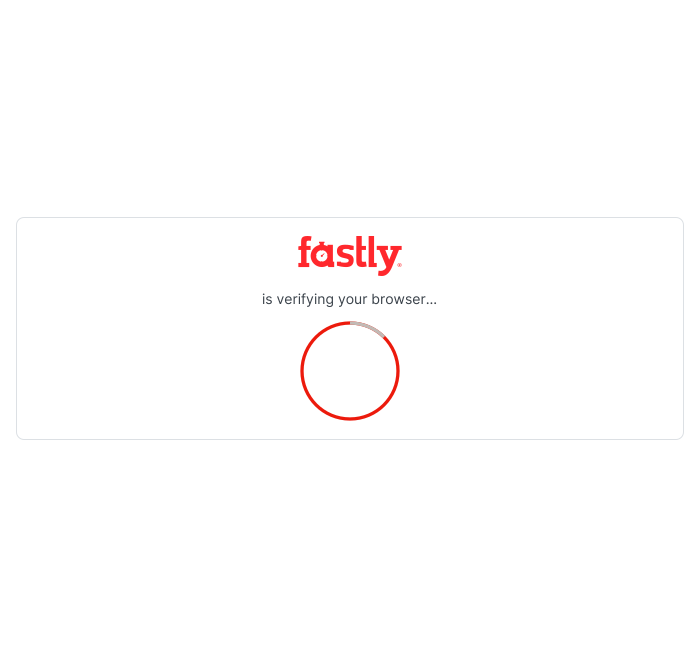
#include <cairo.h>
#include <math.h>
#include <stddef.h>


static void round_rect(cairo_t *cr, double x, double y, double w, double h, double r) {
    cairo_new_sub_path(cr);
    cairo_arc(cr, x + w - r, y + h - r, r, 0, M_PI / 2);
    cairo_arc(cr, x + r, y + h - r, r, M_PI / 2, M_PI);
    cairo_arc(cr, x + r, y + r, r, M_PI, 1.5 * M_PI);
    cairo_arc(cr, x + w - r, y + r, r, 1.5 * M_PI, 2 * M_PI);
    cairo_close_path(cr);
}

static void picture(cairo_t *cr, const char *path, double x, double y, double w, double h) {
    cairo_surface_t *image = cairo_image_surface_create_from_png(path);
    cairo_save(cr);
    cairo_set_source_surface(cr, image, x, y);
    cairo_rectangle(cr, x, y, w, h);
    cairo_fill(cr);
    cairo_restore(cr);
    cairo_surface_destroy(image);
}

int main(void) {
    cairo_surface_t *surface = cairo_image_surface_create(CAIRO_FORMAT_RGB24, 700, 657);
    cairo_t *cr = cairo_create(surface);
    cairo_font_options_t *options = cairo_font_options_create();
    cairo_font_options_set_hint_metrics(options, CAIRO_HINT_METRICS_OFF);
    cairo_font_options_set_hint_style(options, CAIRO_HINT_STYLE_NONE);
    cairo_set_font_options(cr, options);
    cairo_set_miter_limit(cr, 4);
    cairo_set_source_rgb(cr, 1, 1, 1);
    cairo_paint(cr);
    round_rect(cr, 16.5, 217.5, 667, 222, 7.5);
    cairo_set_source_rgb(cr, 0.863, 0.878, 0.894);
    cairo_set_line_width(cr, 1);
    cairo_stroke(cr);
    picture(cr, "img1.png", 298, 236, 104, 40);
    cairo_select_font_face(cr, "Inter", CAIRO_FONT_SLANT_NORMAL, CAIRO_FONT_WEIGHT_NORMAL);
    cairo_set_font_size(cr, 14);
    cairo_set_source_rgb(cr, 0.227, 0.259, 0.29);
    cairo_move_to(cr, 262, 304);
    cairo_show_text(cr, "is verifying your browser...");
    cairo_new_path(cr);
    cairo_move_to(cr, 302, 371);
    cairo_curve_to(cr, 302, 344.5, 323.5, 323, 350, 323);
    cairo_curve_to(cr, 376.5, 323, 398, 344.5, 398, 371);
    cairo_curve_to(cr, 398, 397.5, 376.5, 419, 350, 419);
    cairo_curve_to(cr, 323.5, 419, 302, 397.5, 302, 371);
    cairo_close_path(cr);
    cairo_set_source_rgb(cr, 0.922, 0.102, 0.047);
    cairo_set_line_width(cr, 3.3);
    cairo_stroke(cr);
    cairo_new_path(cr);
    cairo_move_to(cr, 384, 337);
    cairo_curve_to(cr, 375, 328, 362.5, 323, 350, 323);
    cairo_set_source_rgb(cr, 0.761, 0.729, 0.71);
    cairo_stroke(cr);
    cairo_surface_write_to_png(surface, "page.png");
    cairo_font_options_destroy(options);
    cairo_destroy(cr);
    cairo_surface_destroy(surface);
    return 0;
}
